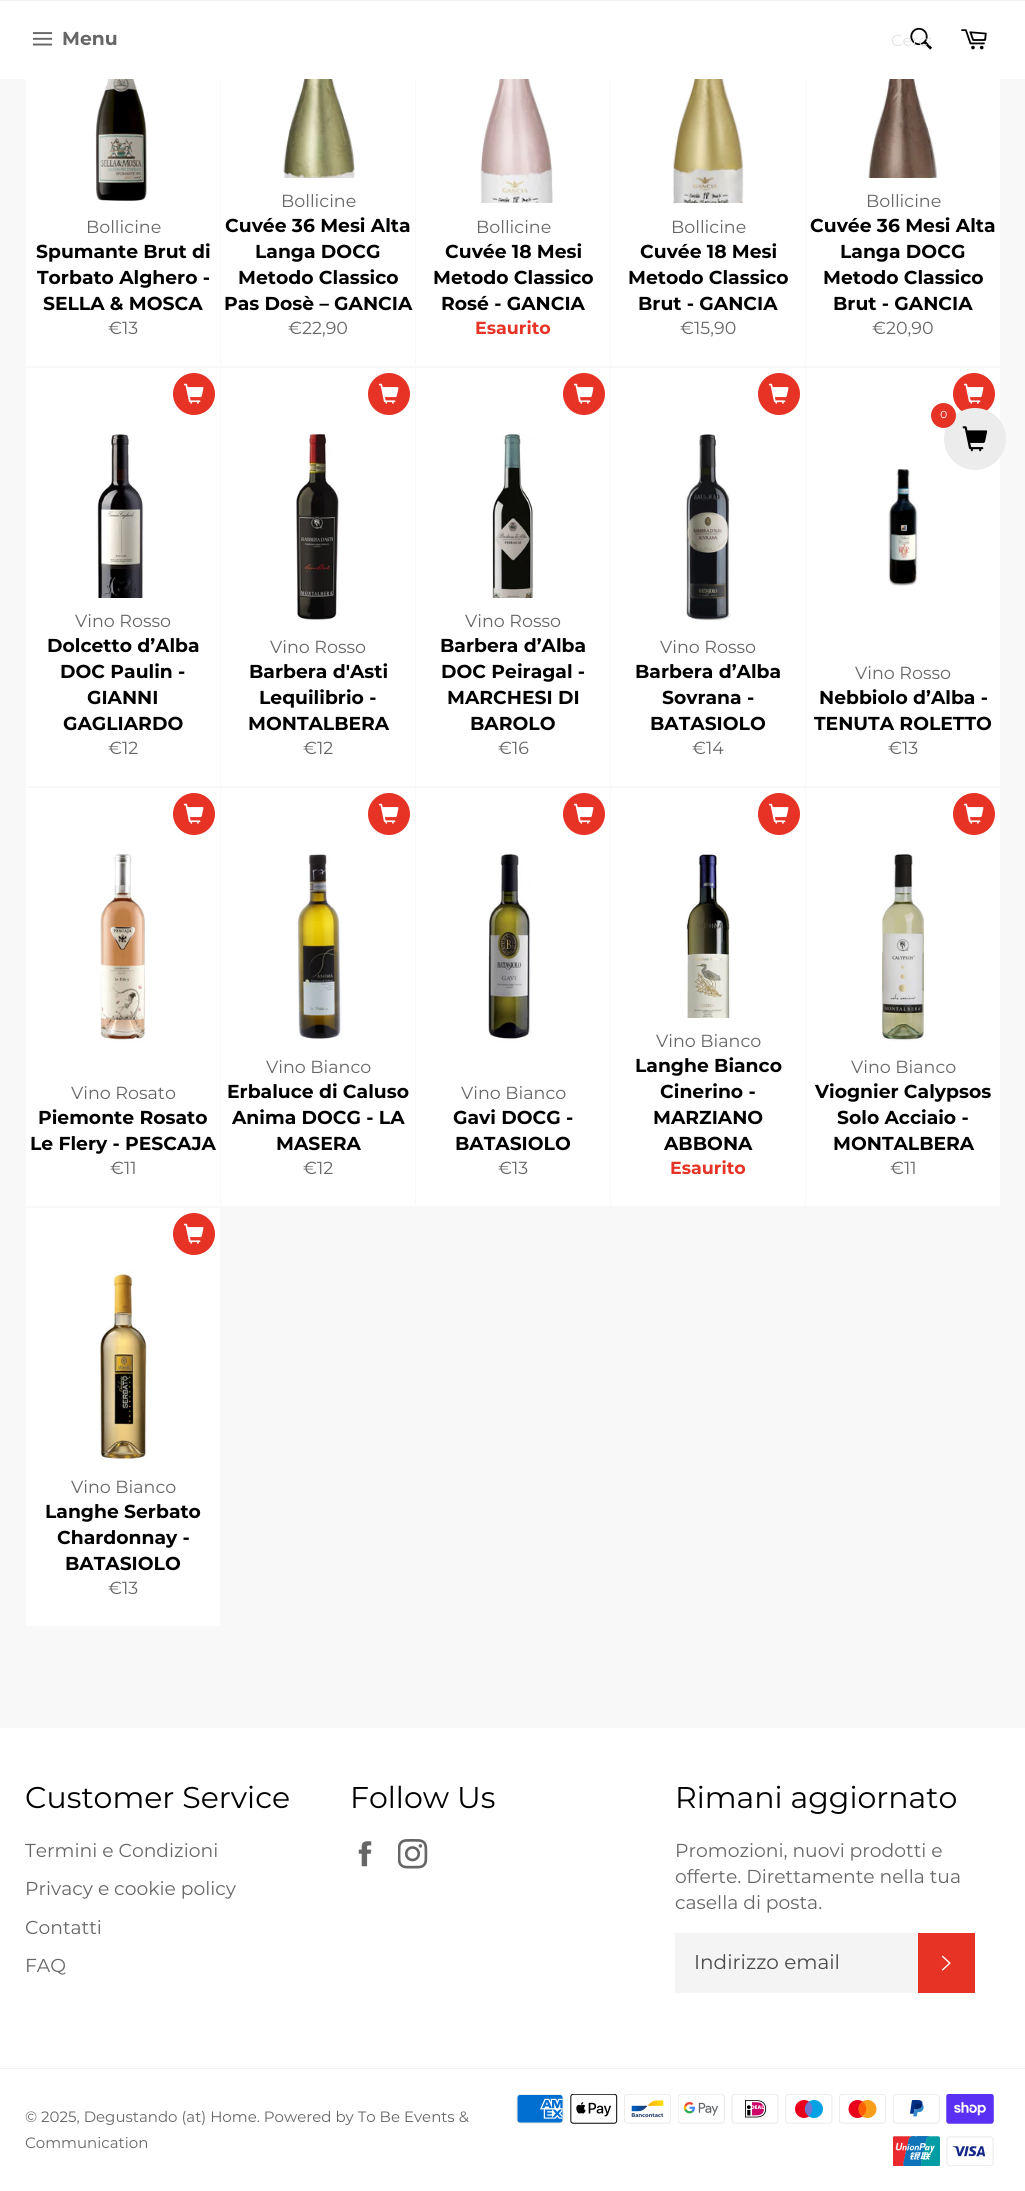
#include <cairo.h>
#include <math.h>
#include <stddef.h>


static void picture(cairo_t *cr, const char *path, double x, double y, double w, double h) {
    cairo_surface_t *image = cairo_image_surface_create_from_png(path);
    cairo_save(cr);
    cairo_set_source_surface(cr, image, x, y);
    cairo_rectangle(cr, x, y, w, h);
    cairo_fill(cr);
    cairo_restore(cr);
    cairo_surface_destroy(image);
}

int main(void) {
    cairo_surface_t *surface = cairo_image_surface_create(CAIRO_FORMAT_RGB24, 1025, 2191);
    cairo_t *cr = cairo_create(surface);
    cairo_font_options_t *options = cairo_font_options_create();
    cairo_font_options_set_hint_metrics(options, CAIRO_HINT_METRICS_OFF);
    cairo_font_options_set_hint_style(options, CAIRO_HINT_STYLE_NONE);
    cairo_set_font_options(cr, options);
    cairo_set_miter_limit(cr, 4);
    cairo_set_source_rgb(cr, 0.969, 0.969, 0.969);
    cairo_paint(cr);
    cairo_set_source_rgb(cr, 1, 1, 1);
    cairo_rectangle(cr, 0, 1, 1025, 78);
    cairo_fill(cr);
    cairo_set_source_rgb(cr, 0.949, 0.949, 0.949);
    cairo_rectangle(cr, 0, 0, 1025, 1);
    cairo_fill(cr);
    picture(cr, "img1.png", 32, 32, 21, 14);
    cairo_select_font_face(cr, "Montserrat", CAIRO_FONT_SLANT_NORMAL, CAIRO_FONT_WEIGHT_BOLD);
    cairo_set_font_size(cr, 18.75);
    cairo_set_source_rgb(cr, 0.4, 0.4, 0.4);
    cairo_move_to(cr, 62, 45);
    cairo_show_text(cr, "Menu");
    picture(cr, "img2.png", 910, 27, 22, 23);
    cairo_save(cr);
    cairo_rectangle(cr, 891, 30, 40, 20);
    cairo_clip(cr);
    cairo_select_font_face(cr, "Montserrat", CAIRO_FONT_SLANT_NORMAL, CAIRO_FONT_WEIGHT_NORMAL);
    cairo_set_font_size(cr, 16);
    cairo_set_source_rgb(cr, 0.89, 0.89, 0.89);
    cairo_move_to(cr, 891, 46);
    cairo_show_text(cr, "Cerca");
    cairo_restore(cr);
    picture(cr, "img3.png", 961, 29, 26, 21);
    cairo_set_source_rgb(cr, 1, 1, 1);
    cairo_rectangle(cr, 26, 79, 194, 287);
    cairo_fill(cr);
    picture(cr, "img4.png", 95, 79, 53, 123);
    cairo_select_font_face(cr, "Montserrat", CAIRO_FONT_SLANT_NORMAL, CAIRO_FONT_WEIGHT_NORMAL);
    cairo_set_font_size(cr, 17.5);
    cairo_set_source_rgb(cr, 0.4, 0.4, 0.4);
    cairo_move_to(cr, 86, 233);
    cairo_show_text(cr, "Bollicine");
    cairo_select_font_face(cr, "Montserrat", CAIRO_FONT_SLANT_NORMAL, CAIRO_FONT_WEIGHT_BOLD);
    cairo_set_font_size(cr, 18.75);
    cairo_set_source_rgb(cr, 0, 0, 0);
    cairo_move_to(cr, 36, 258);
    cairo_show_text(cr, "Spumante Brut di");
    cairo_move_to(cr, 37, 284);
    cairo_show_text(cr, "Torbato Alghero -");
    cairo_move_to(cr, 43, 310);
    cairo_show_text(cr, "SELLA & MOSCA");
    cairo_select_font_face(cr, "Montserrat", CAIRO_FONT_SLANT_NORMAL, CAIRO_FONT_WEIGHT_NORMAL);
    cairo_set_font_size(cr, 17.5);
    cairo_set_source_rgb(cr, 0.4, 0.4, 0.4);
    cairo_move_to(cr, 108, 334);
    cairo_show_text(cr, "€13");
    cairo_set_source_rgb(cr, 1, 1, 1);
    cairo_rectangle(cr, 221, 79, 194, 287);
    cairo_fill(cr);
    picture(cr, "img5.png", 283, 79, 72, 99);
    cairo_set_source_rgb(cr, 0.4, 0.4, 0.4);
    cairo_move_to(cr, 281, 207);
    cairo_show_text(cr, "Bollicine");
    cairo_select_font_face(cr, "Montserrat", CAIRO_FONT_SLANT_NORMAL, CAIRO_FONT_WEIGHT_BOLD);
    cairo_set_font_size(cr, 18.75);
    cairo_set_source_rgb(cr, 0, 0, 0);
    cairo_move_to(cr, 225, 232);
    cairo_show_text(cr, "Cuvée 36 Mesi Alta");
    cairo_move_to(cr, 255, 258);
    cairo_show_text(cr, "Langa DOCG");
    cairo_move_to(cr, 238, 284);
    cairo_show_text(cr, "Metodo Classico");
    cairo_move_to(cr, 224, 310);
    cairo_show_text(cr, "Pas Dosè – GANCIA");
    cairo_select_font_face(cr, "Montserrat", CAIRO_FONT_SLANT_NORMAL, CAIRO_FONT_WEIGHT_NORMAL);
    cairo_set_font_size(cr, 17.5);
    cairo_set_source_rgb(cr, 0.4, 0.4, 0.4);
    cairo_move_to(cr, 288, 334);
    cairo_show_text(cr, "€22,90");
    cairo_set_source_rgb(cr, 1, 1, 1);
    cairo_rectangle(cr, 416, 79, 194, 287);
    cairo_fill(cr);
    picture(cr, "img6.png", 480, 79, 73, 124);
    cairo_set_source_rgb(cr, 0.4, 0.4, 0.4);
    cairo_move_to(cr, 476, 233);
    cairo_show_text(cr, "Bollicine");
    cairo_select_font_face(cr, "Montserrat", CAIRO_FONT_SLANT_NORMAL, CAIRO_FONT_WEIGHT_BOLD);
    cairo_set_font_size(cr, 18.75);
    cairo_set_source_rgb(cr, 0, 0, 0);
    cairo_move_to(cr, 445, 258);
    cairo_show_text(cr, "Cuvée 18 Mesi");
    cairo_move_to(cr, 433, 284);
    cairo_show_text(cr, "Metodo Classico");
    cairo_move_to(cr, 441, 310);
    cairo_show_text(cr, "Rosé - GANCIA");
    cairo_set_font_size(cr, 17.5);
    cairo_set_source_rgb(cr, 0.906, 0.2, 0.145);
    cairo_move_to(cr, 475, 334);
    cairo_show_text(cr, "Esaurito");
    cairo_set_source_rgb(cr, 1, 1, 1);
    cairo_rectangle(cr, 611, 79, 194, 287);
    cairo_fill(cr);
    picture(cr, "img7.png", 672, 79, 72, 124);
    cairo_select_font_face(cr, "Montserrat", CAIRO_FONT_SLANT_NORMAL, CAIRO_FONT_WEIGHT_NORMAL);
    cairo_set_source_rgb(cr, 0.4, 0.4, 0.4);
    cairo_move_to(cr, 671, 233);
    cairo_show_text(cr, "Bollicine");
    cairo_select_font_face(cr, "Montserrat", CAIRO_FONT_SLANT_NORMAL, CAIRO_FONT_WEIGHT_BOLD);
    cairo_set_font_size(cr, 18.75);
    cairo_set_source_rgb(cr, 0, 0, 0);
    cairo_move_to(cr, 640, 258);
    cairo_show_text(cr, "Cuvée 18 Mesi");
    cairo_move_to(cr, 628, 284);
    cairo_show_text(cr, "Metodo Classico");
    cairo_move_to(cr, 638, 310);
    cairo_show_text(cr, "Brut - GANCIA");
    cairo_select_font_face(cr, "Montserrat", CAIRO_FONT_SLANT_NORMAL, CAIRO_FONT_WEIGHT_NORMAL);
    cairo_set_font_size(cr, 17.5);
    cairo_set_source_rgb(cr, 0.4, 0.4, 0.4);
    cairo_move_to(cr, 680, 334);
    cairo_show_text(cr, "€15,90");
    cairo_set_source_rgb(cr, 1, 1, 1);
    cairo_rectangle(cr, 806, 79, 194, 287);
    cairo_fill(cr);
    picture(cr, "img8.png", 868, 79, 70, 99);
    cairo_set_source_rgb(cr, 0.4, 0.4, 0.4);
    cairo_move_to(cr, 866, 207);
    cairo_show_text(cr, "Bollicine");
    cairo_select_font_face(cr, "Montserrat", CAIRO_FONT_SLANT_NORMAL, CAIRO_FONT_WEIGHT_BOLD);
    cairo_set_font_size(cr, 18.75);
    cairo_set_source_rgb(cr, 0, 0, 0);
    cairo_move_to(cr, 810, 232);
    cairo_show_text(cr, "Cuvée 36 Mesi Alta");
    cairo_move_to(cr, 840, 258);
    cairo_show_text(cr, "Langa DOCG");
    cairo_move_to(cr, 823, 284);
    cairo_show_text(cr, "Metodo Classico");
    cairo_move_to(cr, 833, 310);
    cairo_show_text(cr, "Brut - GANCIA");
    cairo_select_font_face(cr, "Montserrat", CAIRO_FONT_SLANT_NORMAL, CAIRO_FONT_WEIGHT_NORMAL);
    cairo_set_font_size(cr, 17.5);
    cairo_set_source_rgb(cr, 0.4, 0.4, 0.4);
    cairo_move_to(cr, 872, 334);
    cairo_show_text(cr, "€20,90");
    cairo_set_source_rgb(cr, 1, 1, 1);
    cairo_rectangle(cr, 26, 368, 194, 418);
    cairo_fill(cr);
    cairo_set_source_rgb(cr, 0.906, 0.2, 0.145);
    cairo_arc(cr, 194, 394, 21, 0, 2 * M_PI);
    cairo_fill(cr);
    picture(cr, "img9.png", 183, 383, 21, 21);
    picture(cr, "img10.png", 97, 434, 47, 164);
    cairo_set_source_rgb(cr, 0.4, 0.4, 0.4);
    cairo_move_to(cr, 75, 627);
    cairo_show_text(cr, "Vino Rosso");
    cairo_select_font_face(cr, "Montserrat", CAIRO_FONT_SLANT_NORMAL, CAIRO_FONT_WEIGHT_BOLD);
    cairo_set_font_size(cr, 18.75);
    cairo_set_source_rgb(cr, 0, 0, 0);
    cairo_move_to(cr, 47, 652);
    cairo_show_text(cr, "Dolcetto d’Alba");
    cairo_move_to(cr, 60, 678);
    cairo_show_text(cr, "DOC Paulin -");
    cairo_move_to(cr, 87, 704);
    cairo_show_text(cr, "GIANNI");
    cairo_move_to(cr, 63, 730);
    cairo_show_text(cr, "GAGLIARDO");
    cairo_select_font_face(cr, "Montserrat", CAIRO_FONT_SLANT_NORMAL, CAIRO_FONT_WEIGHT_NORMAL);
    cairo_set_font_size(cr, 17.5);
    cairo_set_source_rgb(cr, 0.4, 0.4, 0.4);
    cairo_move_to(cr, 108, 754);
    cairo_show_text(cr, "€12");
    cairo_set_source_rgb(cr, 1, 1, 1);
    cairo_rectangle(cr, 221, 368, 194, 418);
    cairo_fill(cr);
    cairo_set_source_rgb(cr, 0.906, 0.2, 0.145);
    cairo_arc(cr, 389, 394, 21, 0, 2 * M_PI);
    cairo_fill(cr);
    picture(cr, "img9.png", 378, 383, 21, 21);
    picture(cr, "img11.png", 296, 433, 43, 189);
    cairo_set_source_rgb(cr, 0.4, 0.4, 0.4);
    cairo_move_to(cr, 270, 653);
    cairo_show_text(cr, "Vino Rosso");
    cairo_select_font_face(cr, "Montserrat", CAIRO_FONT_SLANT_NORMAL, CAIRO_FONT_WEIGHT_BOLD);
    cairo_set_font_size(cr, 18.75);
    cairo_set_source_rgb(cr, 0, 0, 0);
    cairo_move_to(cr, 249, 678);
    cairo_show_text(cr, "Barbera d'Asti");
    cairo_move_to(cr, 259, 704);
    cairo_show_text(cr, "Lequilibrio -");
    cairo_move_to(cr, 248, 730);
    cairo_show_text(cr, "MONTALBERA");
    cairo_select_font_face(cr, "Montserrat", CAIRO_FONT_SLANT_NORMAL, CAIRO_FONT_WEIGHT_NORMAL);
    cairo_set_font_size(cr, 17.5);
    cairo_set_source_rgb(cr, 0.4, 0.4, 0.4);
    cairo_move_to(cr, 303, 754);
    cairo_show_text(cr, "€12");
    cairo_set_source_rgb(cr, 1, 1, 1);
    cairo_rectangle(cr, 416, 368, 194, 418);
    cairo_fill(cr);
    cairo_set_source_rgb(cr, 0.906, 0.2, 0.145);
    cairo_arc(cr, 584, 394, 21, 0, 2 * M_PI);
    cairo_fill(cr);
    picture(cr, "img9.png", 573, 383, 21, 21);
    picture(cr, "img12.png", 491, 433, 43, 165);
    cairo_set_source_rgb(cr, 0.4, 0.4, 0.4);
    cairo_move_to(cr, 465, 627);
    cairo_show_text(cr, "Vino Rosso");
    cairo_select_font_face(cr, "Montserrat", CAIRO_FONT_SLANT_NORMAL, CAIRO_FONT_WEIGHT_BOLD);
    cairo_set_font_size(cr, 18.75);
    cairo_set_source_rgb(cr, 0, 0, 0);
    cairo_move_to(cr, 440, 652);
    cairo_show_text(cr, "Barbera d’Alba");
    cairo_move_to(cr, 441, 678);
    cairo_show_text(cr, "DOC Peiragal -");
    cairo_move_to(cr, 447, 704);
    cairo_show_text(cr, "MARCHESI DI");
    cairo_move_to(cr, 470, 730);
    cairo_show_text(cr, "BAROLO");
    cairo_select_font_face(cr, "Montserrat", CAIRO_FONT_SLANT_NORMAL, CAIRO_FONT_WEIGHT_NORMAL);
    cairo_set_font_size(cr, 17.5);
    cairo_set_source_rgb(cr, 0.4, 0.4, 0.4);
    cairo_move_to(cr, 498, 754);
    cairo_show_text(cr, "€16");
    cairo_set_source_rgb(cr, 1, 1, 1);
    cairo_rectangle(cr, 611, 368, 194, 418);
    cairo_fill(cr);
    cairo_set_source_rgb(cr, 0.906, 0.2, 0.145);
    cairo_arc(cr, 779, 394, 21, 0, 2 * M_PI);
    cairo_fill(cr);
    picture(cr, "img9.png", 768, 383, 21, 21);
    picture(cr, "img13.png", 686, 434, 46, 188);
    cairo_set_source_rgb(cr, 0.4, 0.4, 0.4);
    cairo_move_to(cr, 660, 653);
    cairo_show_text(cr, "Vino Rosso");
    cairo_select_font_face(cr, "Montserrat", CAIRO_FONT_SLANT_NORMAL, CAIRO_FONT_WEIGHT_BOLD);
    cairo_set_font_size(cr, 18.75);
    cairo_set_source_rgb(cr, 0, 0, 0);
    cairo_move_to(cr, 635, 678);
    cairo_show_text(cr, "Barbera d’Alba");
    cairo_move_to(cr, 662, 704);
    cairo_show_text(cr, "Sovrana -");
    cairo_move_to(cr, 650, 730);
    cairo_show_text(cr, "BATASIOLO");
    cairo_select_font_face(cr, "Montserrat", CAIRO_FONT_SLANT_NORMAL, CAIRO_FONT_WEIGHT_NORMAL);
    cairo_set_font_size(cr, 17.5);
    cairo_set_source_rgb(cr, 0.4, 0.4, 0.4);
    cairo_move_to(cr, 692, 754);
    cairo_show_text(cr, "€14");
    cairo_set_source_rgb(cr, 1, 1, 1);
    cairo_rectangle(cr, 806, 368, 194, 418);
    cairo_fill(cr);
    cairo_set_source_rgb(cr, 0.906, 0.2, 0.145);
    cairo_arc(cr, 974, 394, 21, 0, 2 * M_PI);
    cairo_fill(cr);
    picture(cr, "img9.png", 963, 383, 21, 21);
    picture(cr, "img14.png", 888, 469, 30, 118);
    cairo_set_source_rgb(cr, 0.4, 0.4, 0.4);
    cairo_move_to(cr, 855, 679);
    cairo_show_text(cr, "Vino Rosso");
    cairo_select_font_face(cr, "Montserrat", CAIRO_FONT_SLANT_NORMAL, CAIRO_FONT_WEIGHT_BOLD);
    cairo_set_font_size(cr, 18.75);
    cairo_set_source_rgb(cr, 0, 0, 0);
    cairo_move_to(cr, 819, 704);
    cairo_show_text(cr, "Nebbiolo d’Alba -");
    cairo_move_to(cr, 814, 730);
    cairo_show_text(cr, "TENUTA ROLETTO");
    cairo_select_font_face(cr, "Montserrat", CAIRO_FONT_SLANT_NORMAL, CAIRO_FONT_WEIGHT_NORMAL);
    cairo_set_font_size(cr, 17.5);
    cairo_set_source_rgb(cr, 0.4, 0.4, 0.4);
    cairo_move_to(cr, 888, 754);
    cairo_show_text(cr, "€13");
    cairo_set_source_rgb(cr, 1, 1, 1);
    cairo_rectangle(cr, 26, 788, 194, 418);
    cairo_fill(cr);
    cairo_set_source_rgb(cr, 0.906, 0.2, 0.145);
    cairo_arc(cr, 194, 814, 21, 0, 2 * M_PI);
    cairo_fill(cr);
    picture(cr, "img9.png", 183, 803, 21, 21);
    picture(cr, "img15.png", 100, 854, 47, 188);
    cairo_set_source_rgb(cr, 0.4, 0.4, 0.4);
    cairo_move_to(cr, 71, 1099);
    cairo_show_text(cr, "Vino Rosato");
    cairo_select_font_face(cr, "Montserrat", CAIRO_FONT_SLANT_NORMAL, CAIRO_FONT_WEIGHT_BOLD);
    cairo_set_font_size(cr, 18.75);
    cairo_set_source_rgb(cr, 0, 0, 0);
    cairo_move_to(cr, 38, 1124);
    cairo_show_text(cr, "Piemonte Rosato");
    cairo_move_to(cr, 30, 1150);
    cairo_show_text(cr, "Le Flery - PESCAJA");
    cairo_select_font_face(cr, "Montserrat", CAIRO_FONT_SLANT_NORMAL, CAIRO_FONT_WEIGHT_NORMAL);
    cairo_set_font_size(cr, 17.5);
    cairo_set_source_rgb(cr, 0.4, 0.4, 0.4);
    cairo_move_to(cr, 110, 1174);
    cairo_show_text(cr, "€11");
    cairo_set_source_rgb(cr, 1, 1, 1);
    cairo_rectangle(cr, 221, 788, 194, 418);
    cairo_fill(cr);
    cairo_set_source_rgb(cr, 0.906, 0.2, 0.145);
    cairo_arc(cr, 389, 814, 21, 0, 2 * M_PI);
    cairo_fill(cr);
    picture(cr, "img9.png", 378, 803, 21, 21);
    picture(cr, "img16.png", 296, 854, 46, 185);
    cairo_set_source_rgb(cr, 0.4, 0.4, 0.4);
    cairo_move_to(cr, 266, 1073);
    cairo_show_text(cr, "Vino Bianco");
    cairo_select_font_face(cr, "Montserrat", CAIRO_FONT_SLANT_NORMAL, CAIRO_FONT_WEIGHT_BOLD);
    cairo_set_font_size(cr, 18.75);
    cairo_set_source_rgb(cr, 0, 0, 0);
    cairo_move_to(cr, 227, 1098);
    cairo_show_text(cr, "Erbaluce di Caluso");
    cairo_move_to(cr, 232, 1124);
    cairo_show_text(cr, "Anima DOCG - LA");
    cairo_move_to(cr, 276, 1150);
    cairo_show_text(cr, "MASERA");
    cairo_select_font_face(cr, "Montserrat", CAIRO_FONT_SLANT_NORMAL, CAIRO_FONT_WEIGHT_NORMAL);
    cairo_set_font_size(cr, 17.5);
    cairo_set_source_rgb(cr, 0.4, 0.4, 0.4);
    cairo_move_to(cr, 303, 1174);
    cairo_show_text(cr, "€12");
    cairo_set_source_rgb(cr, 1, 1, 1);
    cairo_rectangle(cr, 416, 788, 194, 418);
    cairo_fill(cr);
    cairo_set_source_rgb(cr, 0.906, 0.2, 0.145);
    cairo_arc(cr, 584, 814, 21, 0, 2 * M_PI);
    cairo_fill(cr);
    picture(cr, "img9.png", 573, 803, 21, 21);
    picture(cr, "img17.png", 488, 853, 43, 189);
    cairo_set_source_rgb(cr, 0.4, 0.4, 0.4);
    cairo_move_to(cr, 461, 1099);
    cairo_show_text(cr, "Vino Bianco");
    cairo_select_font_face(cr, "Montserrat", CAIRO_FONT_SLANT_NORMAL, CAIRO_FONT_WEIGHT_BOLD);
    cairo_set_font_size(cr, 18.75);
    cairo_set_source_rgb(cr, 0, 0, 0);
    cairo_move_to(cr, 453, 1124);
    cairo_show_text(cr, "Gavi DOCG -");
    cairo_move_to(cr, 455, 1150);
    cairo_show_text(cr, "BATASIOLO");
    cairo_select_font_face(cr, "Montserrat", CAIRO_FONT_SLANT_NORMAL, CAIRO_FONT_WEIGHT_NORMAL);
    cairo_set_font_size(cr, 17.5);
    cairo_set_source_rgb(cr, 0.4, 0.4, 0.4);
    cairo_move_to(cr, 498, 1174);
    cairo_show_text(cr, "€13");
    cairo_set_source_rgb(cr, 1, 1, 1);
    cairo_rectangle(cr, 611, 788, 194, 418);
    cairo_fill(cr);
    cairo_set_source_rgb(cr, 0.906, 0.2, 0.145);
    cairo_arc(cr, 779, 814, 21, 0, 2 * M_PI);
    cairo_fill(cr);
    picture(cr, "img9.png", 768, 803, 21, 21);
    picture(cr, "img18.png", 686, 854, 44, 164);
    cairo_set_source_rgb(cr, 0.4, 0.4, 0.4);
    cairo_move_to(cr, 656, 1047);
    cairo_show_text(cr, "Vino Bianco");
    cairo_select_font_face(cr, "Montserrat", CAIRO_FONT_SLANT_NORMAL, CAIRO_FONT_WEIGHT_BOLD);
    cairo_set_font_size(cr, 18.75);
    cairo_set_source_rgb(cr, 0, 0, 0);
    cairo_move_to(cr, 635, 1072);
    cairo_show_text(cr, "Langhe Bianco");
    cairo_move_to(cr, 660, 1098);
    cairo_show_text(cr, "Cinerino -");
    cairo_move_to(cr, 653, 1124);
    cairo_show_text(cr, "MARZIANO");
    cairo_move_to(cr, 664, 1150);
    cairo_show_text(cr, "ABBONA");
    cairo_set_font_size(cr, 17.5);
    cairo_set_source_rgb(cr, 0.906, 0.2, 0.145);
    cairo_move_to(cr, 670, 1174);
    cairo_show_text(cr, "Esaurito");
    cairo_set_source_rgb(cr, 1, 1, 1);
    cairo_rectangle(cr, 806, 788, 194, 418);
    cairo_fill(cr);
    cairo_set_source_rgb(cr, 0.906, 0.2, 0.145);
    cairo_arc(cr, 974, 814, 21, 0, 2 * M_PI);
    cairo_fill(cr);
    picture(cr, "img9.png", 963, 803, 21, 21);
    picture(cr, "img19.png", 881, 853, 44, 189);
    cairo_select_font_face(cr, "Montserrat", CAIRO_FONT_SLANT_NORMAL, CAIRO_FONT_WEIGHT_NORMAL);
    cairo_set_source_rgb(cr, 0.4, 0.4, 0.4);
    cairo_move_to(cr, 851, 1073);
    cairo_show_text(cr, "Vino Bianco");
    cairo_select_font_face(cr, "Montserrat", CAIRO_FONT_SLANT_NORMAL, CAIRO_FONT_WEIGHT_BOLD);
    cairo_set_font_size(cr, 18.75);
    cairo_set_source_rgb(cr, 0, 0, 0);
    cairo_move_to(cr, 815, 1098);
    cairo_show_text(cr, "Viognier Calypsos");
    cairo_move_to(cr, 837, 1124);
    cairo_show_text(cr, "Solo Acciaio -");
    cairo_move_to(cr, 833, 1150);
    cairo_show_text(cr, "MONTALBERA");
    cairo_select_font_face(cr, "Montserrat", CAIRO_FONT_SLANT_NORMAL, CAIRO_FONT_WEIGHT_NORMAL);
    cairo_set_font_size(cr, 17.5);
    cairo_set_source_rgb(cr, 0.4, 0.4, 0.4);
    cairo_move_to(cr, 890, 1174);
    cairo_show_text(cr, "€11");
    cairo_set_source_rgb(cr, 1, 1, 1);
    cairo_rectangle(cr, 26, 1208, 194, 418);
    cairo_fill(cr);
    cairo_set_source_rgb(cr, 0.906, 0.2, 0.145);
    cairo_arc(cr, 194, 1234, 21, 0, 2 * M_PI);
    cairo_fill(cr);
    picture(cr, "img9.png", 183, 1223, 21, 21);
    picture(cr, "img20.png", 100, 1270, 47, 192);
    cairo_set_source_rgb(cr, 0.4, 0.4, 0.4);
    cairo_move_to(cr, 71, 1493);
    cairo_show_text(cr, "Vino Bianco");
    cairo_select_font_face(cr, "Montserrat", CAIRO_FONT_SLANT_NORMAL, CAIRO_FONT_WEIGHT_BOLD);
    cairo_set_font_size(cr, 18.75);
    cairo_set_source_rgb(cr, 0, 0, 0);
    cairo_move_to(cr, 45, 1518);
    cairo_show_text(cr, "Langhe Serbato");
    cairo_move_to(cr, 57, 1544);
    cairo_show_text(cr, "Chardonnay -");
    cairo_move_to(cr, 65, 1570);
    cairo_show_text(cr, "BATASIOLO");
    cairo_select_font_face(cr, "Montserrat", CAIRO_FONT_SLANT_NORMAL, CAIRO_FONT_WEIGHT_NORMAL);
    cairo_set_font_size(cr, 17.5);
    cairo_set_source_rgb(cr, 0.4, 0.4, 0.4);
    cairo_move_to(cr, 108, 1594);
    cairo_show_text(cr, "€13");
    cairo_set_source_rgb(cr, 1, 1, 1);
    cairo_rectangle(cr, 0, 1728, 1025, 463);
    cairo_fill(cr);
    cairo_set_font_size(cr, 30);
    cairo_set_source_rgb(cr, 0, 0, 0);
    cairo_move_to(cr, 25, 1808);
    cairo_show_text(cr, "Customer Service");
    cairo_set_font_size(cr, 18.75);
    cairo_set_source_rgb(cr, 0.4, 0.4, 0.4);
    cairo_move_to(cr, 25, 1857);
    cairo_show_text(cr, "Termini e Condizioni");
    cairo_move_to(cr, 25, 1895);
    cairo_show_text(cr, "Privacy e cookie policy");
    cairo_move_to(cr, 25, 1934);
    cairo_show_text(cr, "Contatti");
    cairo_move_to(cr, 25, 1972);
    cairo_show_text(cr, "FAQ");
    cairo_set_font_size(cr, 30);
    cairo_set_source_rgb(cr, 0, 0, 0);
    cairo_move_to(cr, 350, 1808);
    cairo_show_text(cr, "Follow Us");
    picture(cr, "img21.png", 358, 1841, 14, 26);
    picture(cr, "img22.png", 398, 1839, 30, 30);
    cairo_move_to(cr, 675, 1808);
    cairo_show_text(cr, "Rimani aggiornato");
    cairo_set_font_size(cr, 18.75);
    cairo_set_source_rgb(cr, 0.4, 0.4, 0.4);
    cairo_move_to(cr, 675, 1857);
    cairo_show_text(cr, "Promozioni, nuovi prodotti e");
    cairo_move_to(cr, 675, 1883);
    cairo_show_text(cr, "offerte. Direttamente nella tua");
    cairo_move_to(cr, 675, 1909);
    cairo_show_text(cr, "casella di posta.");
    cairo_set_source_rgb(cr, 0.957, 0.957, 0.957);
    cairo_rectangle(cr, 675, 1933, 243, 60);
    cairo_fill(cr);
    cairo_set_font_size(cr, 20);
    cairo_set_source_rgb(cr, 0.286, 0.286, 0.286);
    cairo_move_to(cr, 694, 1969);
    cairo_show_text(cr, "Indirizzo email");
    cairo_set_source_rgb(cr, 0.906, 0.2, 0.145);
    cairo_rectangle(cr, 918, 1933, 57, 60);
    cairo_fill(cr);
    picture(cr, "img23.png", 941, 1955, 10, 16);
    cairo_set_source_rgb(cr, 0.949, 0.949, 0.949);
    cairo_rectangle(cr, 0, 2068, 1025, 1);
    cairo_fill(cr);
    cairo_set_font_size(cr, 15);
    cairo_set_source_rgb(cr, 0.4, 0.4, 0.4);
    cairo_move_to(cr, 25, 2122);
    cairo_show_text(cr, "© 2025, Degustando (at) Home. Powered by To Be Events &");
    cairo_move_to(cr, 25, 2148);
    cairo_show_text(cr, "Communication");
    picture(cr, "img24.png", 516, 2094, 48, 30);
    picture(cr, "img25.png", 570, 2094, 48, 30);
    picture(cr, "img26.png", 624, 2094, 47, 30);
    picture(cr, "img27.png", 678, 2094, 47, 30);
    picture(cr, "img28.png", 731, 2094, 48, 30);
    picture(cr, "img29.png", 785, 2094, 48, 30);
    picture(cr, "img30.png", 839, 2094, 47, 30);
    picture(cr, "img31.png", 893, 2094, 47, 30);
    picture(cr, "img32.png", 946, 2094, 48, 30);
    picture(cr, "img33.png", 893, 2136, 47, 30);
    picture(cr, "img34.png", 946, 2136, 48, 30);
    cairo_set_source_rgb(cr, 0.922, 0.922, 0.922);
    cairo_arc(cr, 975, 439, 31, 0, 2 * M_PI);
    cairo_fill(cr);
    cairo_set_source_rgb(cr, 0.906, 0.2, 0.145);
    cairo_arc(cr, 943.5, 415.5, 12.5, 0, 2 * M_PI);
    cairo_fill(cr);
    cairo_select_font_face(cr, "Raleway Thin", CAIRO_FONT_SLANT_NORMAL, CAIRO_FONT_WEIGHT_NORMAL);
    cairo_set_font_size(cr, 12);
    cairo_set_source_rgb(cr, 1, 1, 1);
    cairo_move_to(cr, 940, 418);
    cairo_show_text(cr, "0");
    picture(cr, "img35.png", 962, 426, 26, 26);
    cairo_surface_write_to_png(surface, "page.png");
    cairo_font_options_destroy(options);
    cairo_destroy(cr);
    cairo_surface_destroy(surface);
    return 0;
}
